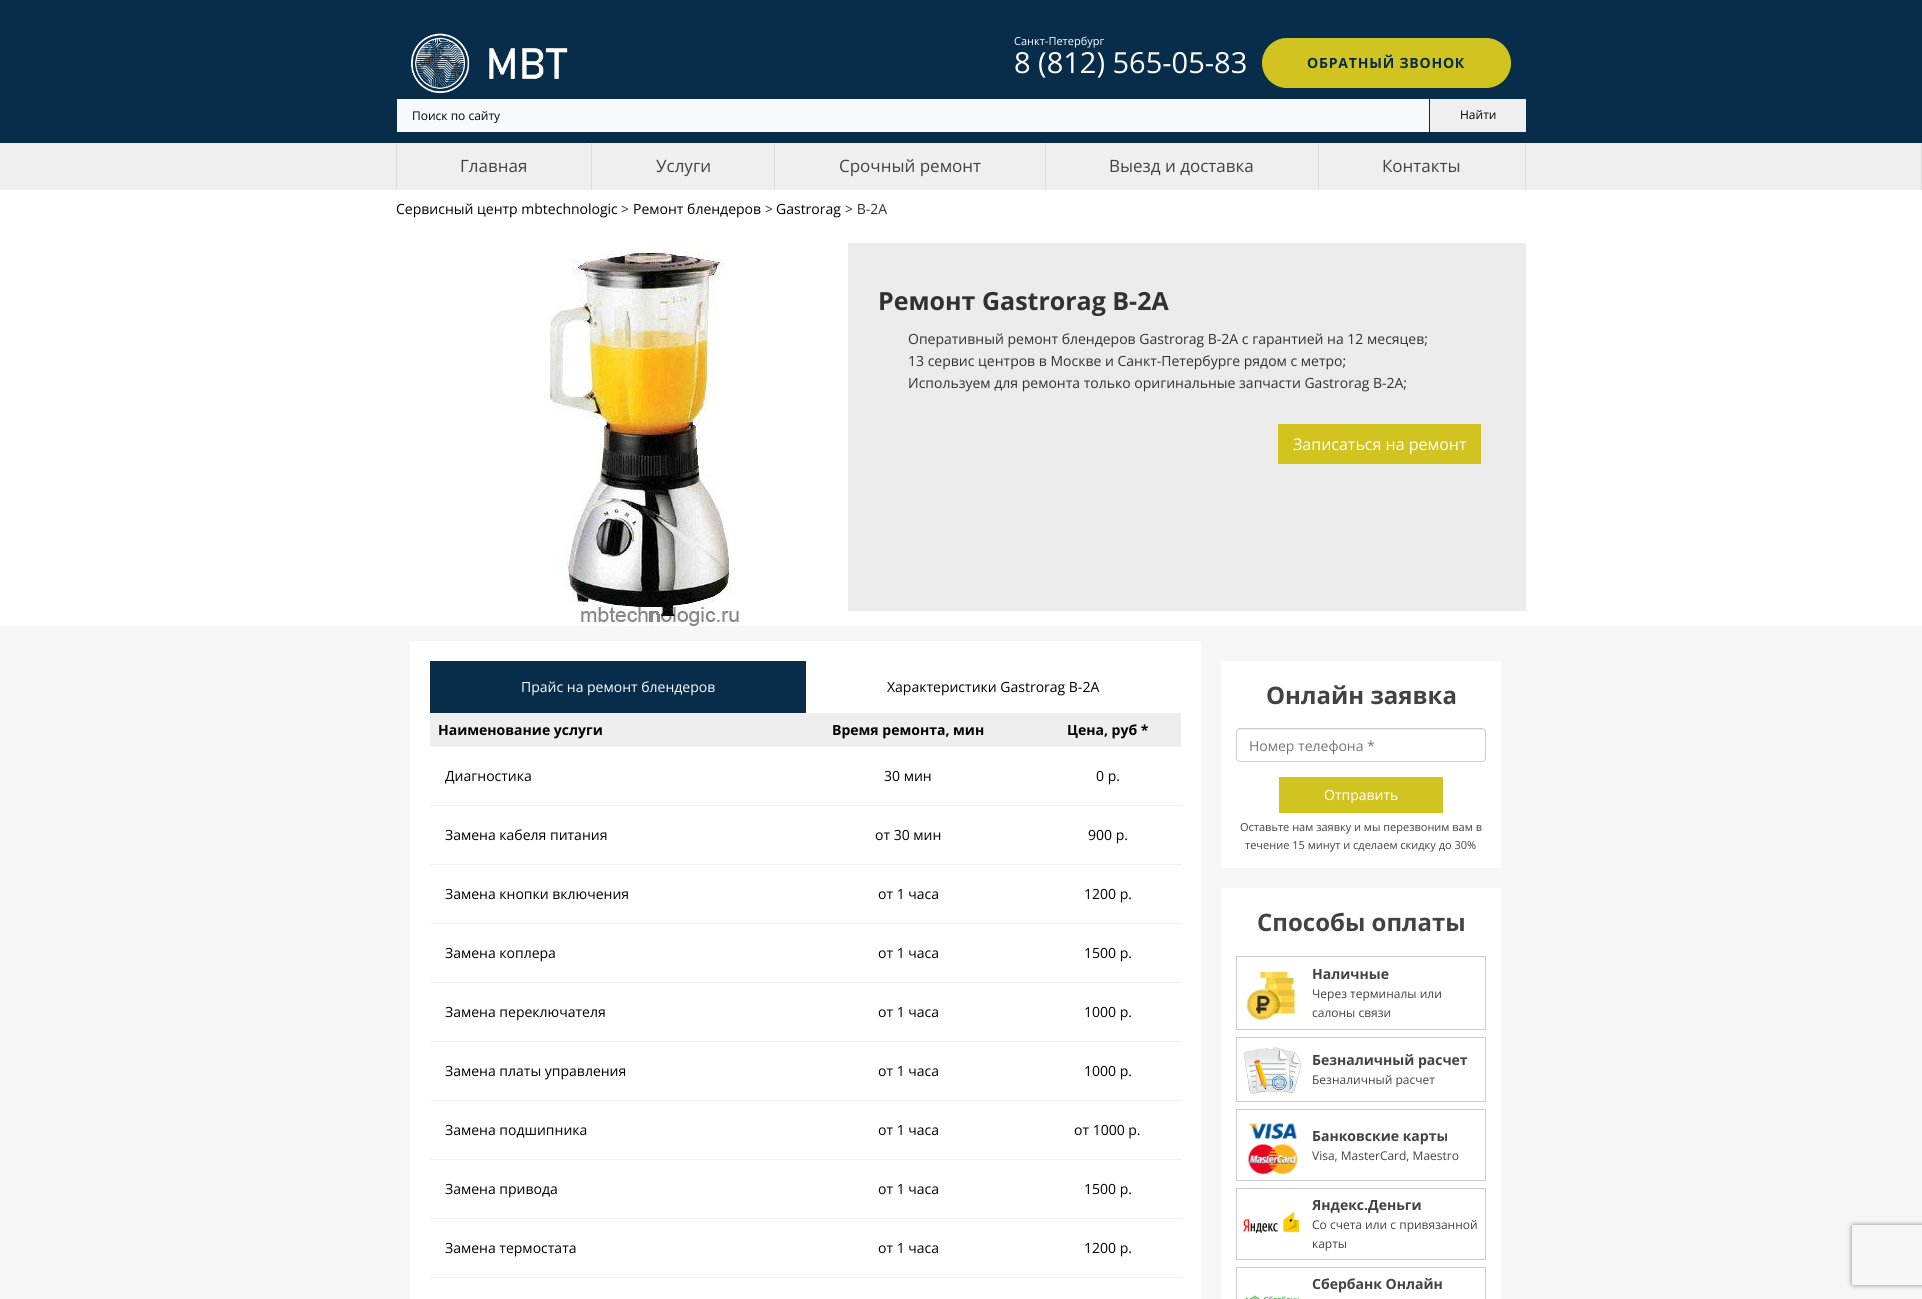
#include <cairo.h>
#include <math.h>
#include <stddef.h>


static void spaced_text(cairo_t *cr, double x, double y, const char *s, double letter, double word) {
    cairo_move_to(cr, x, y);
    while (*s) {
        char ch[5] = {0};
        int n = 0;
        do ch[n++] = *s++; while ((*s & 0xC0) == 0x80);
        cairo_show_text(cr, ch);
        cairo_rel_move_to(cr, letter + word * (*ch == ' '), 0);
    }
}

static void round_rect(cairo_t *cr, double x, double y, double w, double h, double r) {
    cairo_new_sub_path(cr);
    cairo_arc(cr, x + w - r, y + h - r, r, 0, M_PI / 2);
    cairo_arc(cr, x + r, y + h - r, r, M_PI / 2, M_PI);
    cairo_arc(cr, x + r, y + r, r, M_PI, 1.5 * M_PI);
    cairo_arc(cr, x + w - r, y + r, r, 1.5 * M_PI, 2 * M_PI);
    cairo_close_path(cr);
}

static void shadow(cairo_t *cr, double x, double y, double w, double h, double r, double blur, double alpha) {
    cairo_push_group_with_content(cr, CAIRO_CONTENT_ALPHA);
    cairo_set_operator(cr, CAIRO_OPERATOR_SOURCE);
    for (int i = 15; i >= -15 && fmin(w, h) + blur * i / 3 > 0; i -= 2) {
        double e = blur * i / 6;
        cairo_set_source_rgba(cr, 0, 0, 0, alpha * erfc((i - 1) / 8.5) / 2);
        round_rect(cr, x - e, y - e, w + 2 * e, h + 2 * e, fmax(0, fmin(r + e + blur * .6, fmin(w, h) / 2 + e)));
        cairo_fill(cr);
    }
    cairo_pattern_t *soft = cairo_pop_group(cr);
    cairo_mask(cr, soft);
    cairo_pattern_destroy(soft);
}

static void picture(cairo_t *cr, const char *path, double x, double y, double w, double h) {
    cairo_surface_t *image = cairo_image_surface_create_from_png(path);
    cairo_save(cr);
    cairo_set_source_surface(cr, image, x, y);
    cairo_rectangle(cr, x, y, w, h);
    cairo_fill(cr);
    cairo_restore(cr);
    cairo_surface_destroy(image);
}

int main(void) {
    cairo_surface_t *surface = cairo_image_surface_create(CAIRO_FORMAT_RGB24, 1922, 1299);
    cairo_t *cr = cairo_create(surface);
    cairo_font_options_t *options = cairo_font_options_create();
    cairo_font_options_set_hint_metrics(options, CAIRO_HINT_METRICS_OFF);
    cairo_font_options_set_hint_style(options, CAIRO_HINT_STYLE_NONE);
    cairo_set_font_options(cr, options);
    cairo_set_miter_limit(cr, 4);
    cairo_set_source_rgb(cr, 1, 1, 1);
    cairo_paint(cr);
    cairo_set_source_rgb(cr, 0.031, 0.176, 0.294);
    cairo_rectangle(cr, 0, 0, 1922, 143);
    cairo_fill(cr);
    picture(cr, "img1.png", 411, 33, 157, 60);
    cairo_select_font_face(cr, "Open Sans", CAIRO_FONT_SLANT_NORMAL, CAIRO_FONT_WEIGHT_NORMAL);
    cairo_set_font_size(cr, 11);
    cairo_set_source_rgb(cr, 1, 1, 1);
    cairo_move_to(cr, 1014, 45);
    cairo_show_text(cr, "Санкт-Петербург");
    cairo_set_font_size(cr, 29);
    cairo_move_to(cr, 1014, 73);
    cairo_show_text(cr, "8 (812) 565-05-83");
    cairo_set_source_rgb(cr, 0.824, 0.769, 0.125);
    round_rect(cr, 1262.5, 38.5, 248, 49, 24.5);
    cairo_fill_preserve(cr);
    cairo_set_line_width(cr, 1);
    cairo_stroke(cr);
    cairo_select_font_face(cr, "Open Sans", CAIRO_FONT_SLANT_NORMAL, CAIRO_FONT_WEIGHT_BOLD);
    cairo_set_font_size(cr, 14);
    cairo_set_source_rgb(cr, 0.027, 0.173, 0.29);
    spaced_text(cr, 1307, 68, "ОБРАТНЫЙ ЗВОНОК", 0.8, 0);
    cairo_set_source_rgb(cr, 0.969, 0.976, 0.98);
    cairo_rectangle(cr, 397, 99, 1032, 33);
    cairo_fill(cr);
    cairo_select_font_face(cr, "Open Sans", CAIRO_FONT_SLANT_NORMAL, CAIRO_FONT_WEIGHT_NORMAL);
    cairo_set_font_size(cr, 12);
    cairo_set_source_rgb(cr, 0, 0, 0);
    cairo_move_to(cr, 412, 120);
    cairo_show_text(cr, "Поиск по сайту");
    cairo_set_source_rgb(cr, 0.937, 0.937, 0.937);
    cairo_rectangle(cr, 1430, 99, 96, 33);
    cairo_fill(cr);
    cairo_set_source_rgb(cr, 0, 0, 0);
    cairo_move_to(cr, 1460, 119);
    cairo_show_text(cr, "Найти");
    cairo_set_source_rgb(cr, 0.937, 0.937, 0.937);
    cairo_rectangle(cr, 0, 143, 1921, 47);
    cairo_fill(cr);
    cairo_set_source_rgb(cr, 0.867, 0.867, 0.867);
    cairo_rectangle(cr, 1921, 143, 1, 47);
    cairo_fill(cr);
    cairo_rectangle(cr, 591, 143, 1, 47);
    cairo_fill(cr);
    cairo_rectangle(cr, 396, 143, 1, 47);
    cairo_fill(cr);
    cairo_set_font_size(cr, 17);
    cairo_set_source_rgb(cr, 0.259, 0.259, 0.259);
    cairo_move_to(cr, 460, 172);
    cairo_show_text(cr, "Главная");
    cairo_set_source_rgb(cr, 0.867, 0.867, 0.867);
    cairo_rectangle(cr, 774, 143, 1, 47);
    cairo_fill(cr);
    cairo_set_source_rgb(cr, 0.259, 0.259, 0.259);
    cairo_move_to(cr, 656, 172);
    cairo_show_text(cr, "Услуги");
    cairo_set_source_rgb(cr, 0.867, 0.867, 0.867);
    cairo_rectangle(cr, 1045, 143, 1, 47);
    cairo_fill(cr);
    cairo_set_source_rgb(cr, 0.259, 0.259, 0.259);
    cairo_move_to(cr, 839, 172);
    cairo_show_text(cr, "Срочный ремонт");
    cairo_set_source_rgb(cr, 0.867, 0.867, 0.867);
    cairo_rectangle(cr, 1318, 143, 1, 47);
    cairo_fill(cr);
    cairo_set_source_rgb(cr, 0.259, 0.259, 0.259);
    cairo_move_to(cr, 1109, 172);
    cairo_show_text(cr, "Выезд и доставка");
    cairo_set_source_rgb(cr, 0.867, 0.867, 0.867);
    cairo_rectangle(cr, 1525, 143, 1, 47);
    cairo_fill(cr);
    cairo_set_source_rgb(cr, 0.259, 0.259, 0.259);
    cairo_move_to(cr, 1382, 172);
    cairo_show_text(cr, "Контакты");
    cairo_set_font_size(cr, 14);
    cairo_set_source_rgb(cr, 0, 0, 0);
    cairo_move_to(cr, 396, 214);
    cairo_show_text(cr, "Сервисный центр mbtechnologic");
    cairo_set_source_rgb(cr, 0.192, 0.192, 0.196);
    cairo_move_to(cr, 621, 214);
    cairo_show_text(cr, ">");
    cairo_set_source_rgb(cr, 0, 0, 0);
    cairo_move_to(cr, 633, 214);
    cairo_show_text(cr, "Ремонт блендеров");
    cairo_set_source_rgb(cr, 0.192, 0.192, 0.196);
    cairo_move_to(cr, 765, 214);
    cairo_show_text(cr, ">");
    cairo_set_source_rgb(cr, 0, 0, 0);
    cairo_move_to(cr, 776, 214);
    cairo_show_text(cr, "Gastrorag");
    cairo_set_source_rgb(cr, 0.192, 0.192, 0.196);
    cairo_move_to(cr, 845, 214);
    cairo_show_text(cr, "> B-2A");
    picture(cr, "img2.png", 547, 243, 192, 383);
    cairo_set_source_rgb(cr, 0.918, 0.918, 0.918);
    cairo_rectangle(cr, 848, 243, 678, 368);
    cairo_fill(cr);
    cairo_select_font_face(cr, "Open Sans", CAIRO_FONT_SLANT_NORMAL, CAIRO_FONT_WEIGHT_BOLD);
    cairo_set_font_size(cr, 25);
    cairo_set_source_rgb(cr, 0.192, 0.192, 0.196);
    cairo_move_to(cr, 878, 310);
    cairo_show_text(cr, "Ремонт Gastrorag B-2A");
    cairo_select_font_face(cr, "Open Sans", CAIRO_FONT_SLANT_NORMAL, CAIRO_FONT_WEIGHT_NORMAL);
    cairo_set_font_size(cr, 14);
    cairo_move_to(cr, 908, 344);
    cairo_show_text(cr, "Оперативный ремонт блендеров Gastrorag B-2A с гарантией на 12 месяцев;");
    cairo_move_to(cr, 908, 366);
    cairo_show_text(cr, "13 сервис центров в Москве и Санкт-Петербурге рядом с метро;");
    cairo_move_to(cr, 908, 388);
    cairo_show_text(cr, "Используем для ремонта только оригинальные запчасти Gastrorag B-2A;");
    cairo_set_source_rgb(cr, 0.824, 0.769, 0.125);
    cairo_rectangle(cr, 1278, 424, 203, 40);
    cairo_fill(cr);
    cairo_set_font_size(cr, 16);
    cairo_set_source_rgb(cr, 1, 1, 1);
    cairo_move_to(cr, 1293, 450);
    cairo_show_text(cr, "Записаться на ремонт");
    cairo_set_source_rgb(cr, 0.961, 0.961, 0.961);
    cairo_rectangle(cr, 0, 626, 1922, 673);
    cairo_fill(cr);
    cairo_set_source_rgb(cr, 1, 1, 1);
    cairo_rectangle(cr, 410, 641, 791, 658);
    cairo_fill(cr);
    cairo_set_source_rgb(cr, 0.031, 0.176, 0.294);
    cairo_rectangle(cr, 430, 661, 376, 52);
    cairo_fill(cr);
    cairo_set_font_size(cr, 14);
    cairo_set_source_rgb(cr, 1, 1, 1);
    cairo_move_to(cr, 521, 692);
    cairo_show_text(cr, "Прайс на ремонт блендеров");
    cairo_set_source_rgb(cr, 0, 0, 0);
    cairo_move_to(cr, 887, 692);
    cairo_show_text(cr, "Характеристики Gastrorag B-2A");
    cairo_set_source_rgb(cr, 0.945, 0.945, 0.945);
    cairo_rectangle(cr, 430, 713, 752, 1);
    cairo_fill(cr);
    cairo_set_source_rgb(cr, 0.933, 0.933, 0.933);
    cairo_rectangle(cr, 430, 714, 751, 32);
    cairo_fill(cr);
    cairo_select_font_face(cr, "Open Sans", CAIRO_FONT_SLANT_NORMAL, CAIRO_FONT_WEIGHT_BOLD);
    cairo_set_source_rgb(cr, 0, 0, 0);
    cairo_move_to(cr, 438, 735);
    cairo_show_text(cr, "Наименование услуги");
    cairo_move_to(cr, 832, 735);
    cairo_show_text(cr, "Время ремонта, мин");
    cairo_move_to(cr, 1067, 735);
    cairo_show_text(cr, "Цена, руб *");
    cairo_set_source_rgb(cr, 0.945, 0.945, 0.945);
    cairo_rectangle(cr, 430, 746, 752, 1);
    cairo_fill(cr);
    cairo_select_font_face(cr, "Open Sans", CAIRO_FONT_SLANT_NORMAL, CAIRO_FONT_WEIGHT_NORMAL);
    cairo_set_source_rgb(cr, 0, 0, 0);
    cairo_move_to(cr, 445, 781);
    cairo_show_text(cr, "Диагностика");
    cairo_move_to(cr, 884, 781);
    cairo_show_text(cr, "30 мин");
    cairo_move_to(cr, 1096, 781);
    cairo_show_text(cr, "0 р.");
    cairo_set_source_rgb(cr, 0.945, 0.945, 0.945);
    cairo_rectangle(cr, 430, 805, 752, 1);
    cairo_fill(cr);
    cairo_set_source_rgb(cr, 0, 0, 0);
    cairo_move_to(cr, 445, 840);
    cairo_show_text(cr, "Замена кабеля питания");
    cairo_move_to(cr, 875, 840);
    cairo_show_text(cr, "от 30 мин");
    cairo_move_to(cr, 1088, 840);
    cairo_show_text(cr, "900 р.");
    cairo_set_source_rgb(cr, 0.945, 0.945, 0.945);
    cairo_rectangle(cr, 430, 864, 752, 1);
    cairo_fill(cr);
    cairo_set_source_rgb(cr, 0, 0, 0);
    cairo_move_to(cr, 445, 899);
    cairo_show_text(cr, "Замена кнопки включения");
    cairo_move_to(cr, 878, 899);
    cairo_show_text(cr, "от 1 часа");
    cairo_move_to(cr, 1084, 899);
    cairo_show_text(cr, "1200 р.");
    cairo_set_source_rgb(cr, 0.945, 0.945, 0.945);
    cairo_rectangle(cr, 430, 923, 752, 1);
    cairo_fill(cr);
    cairo_set_source_rgb(cr, 0, 0, 0);
    cairo_move_to(cr, 445, 958);
    cairo_show_text(cr, "Замена коплера");
    cairo_move_to(cr, 878, 958);
    cairo_show_text(cr, "от 1 часа");
    cairo_move_to(cr, 1084, 958);
    cairo_show_text(cr, "1500 р.");
    cairo_set_source_rgb(cr, 0.945, 0.945, 0.945);
    cairo_rectangle(cr, 430, 982, 752, 1);
    cairo_fill(cr);
    cairo_set_source_rgb(cr, 0, 0, 0);
    cairo_move_to(cr, 445, 1017);
    cairo_show_text(cr, "Замена переключателя");
    cairo_move_to(cr, 878, 1017);
    cairo_show_text(cr, "от 1 часа");
    cairo_move_to(cr, 1084, 1017);
    cairo_show_text(cr, "1000 р.");
    cairo_set_source_rgb(cr, 0.945, 0.945, 0.945);
    cairo_rectangle(cr, 430, 1041, 752, 1);
    cairo_fill(cr);
    cairo_set_source_rgb(cr, 0, 0, 0);
    cairo_move_to(cr, 445, 1076);
    cairo_show_text(cr, "Замена платы управления");
    cairo_move_to(cr, 878, 1076);
    cairo_show_text(cr, "от 1 часа");
    cairo_move_to(cr, 1084, 1076);
    cairo_show_text(cr, "1000 р.");
    cairo_set_source_rgb(cr, 0.945, 0.945, 0.945);
    cairo_rectangle(cr, 430, 1100, 752, 1);
    cairo_fill(cr);
    cairo_set_source_rgb(cr, 0, 0, 0);
    cairo_move_to(cr, 445, 1135);
    cairo_show_text(cr, "Замена подшипника");
    cairo_move_to(cr, 878, 1135);
    cairo_show_text(cr, "от 1 часа");
    cairo_move_to(cr, 1074, 1135);
    cairo_show_text(cr, "от 1000 р.");
    cairo_set_source_rgb(cr, 0.945, 0.945, 0.945);
    cairo_rectangle(cr, 430, 1159, 752, 1);
    cairo_fill(cr);
    cairo_set_source_rgb(cr, 0, 0, 0);
    cairo_move_to(cr, 445, 1194);
    cairo_show_text(cr, "Замена привода");
    cairo_move_to(cr, 878, 1194);
    cairo_show_text(cr, "от 1 часа");
    cairo_move_to(cr, 1084, 1194);
    cairo_show_text(cr, "1500 р.");
    cairo_set_source_rgb(cr, 0.945, 0.945, 0.945);
    cairo_rectangle(cr, 430, 1218, 752, 1);
    cairo_fill(cr);
    cairo_set_source_rgb(cr, 0, 0, 0);
    cairo_move_to(cr, 445, 1253);
    cairo_show_text(cr, "Замена термостата");
    cairo_move_to(cr, 878, 1253);
    cairo_show_text(cr, "от 1 часа");
    cairo_move_to(cr, 1084, 1253);
    cairo_show_text(cr, "1200 р.");
    cairo_set_source_rgb(cr, 0.945, 0.945, 0.945);
    cairo_rectangle(cr, 430, 1277, 752, 1);
    cairo_fill(cr);
    cairo_set_source_rgb(cr, 1, 1, 1);
    cairo_rectangle(cr, 1221, 661, 280, 207);
    cairo_fill(cr);
    cairo_select_font_face(cr, "Open Sans", CAIRO_FONT_SLANT_NORMAL, CAIRO_FONT_WEIGHT_BOLD);
    cairo_set_font_size(cr, 24);
    cairo_set_source_rgb(cr, 0.259, 0.259, 0.259);
    cairo_move_to(cr, 1266, 704);
    cairo_show_text(cr, "Онлайн заявка");
    cairo_set_source_rgb(cr, 0.925, 0.925, 0.925);
    cairo_new_path(cr);
    cairo_move_to(cr, 1240, 730);
    cairo_line_to(cr, 1482, 730);
    cairo_curve_to(cr, 1484, 730, 1485, 731, 1485, 733);
    cairo_curve_to(cr, 1485, 731, 1484, 729, 1482, 729);
    cairo_line_to(cr, 1240, 729);
    cairo_curve_to(cr, 1238, 729, 1237, 731, 1237, 733);
    cairo_curve_to(cr, 1237, 731, 1238, 730, 1240, 730);
    cairo_close_path(cr);
    cairo_fill(cr);
    round_rect(cr, 1236.5, 728.5, 249, 33, 3.5);
    cairo_set_source_rgb(cr, 0.8, 0.8, 0.8);
    cairo_stroke(cr);
    cairo_select_font_face(cr, "Open Sans", CAIRO_FONT_SLANT_NORMAL, CAIRO_FONT_WEIGHT_NORMAL);
    cairo_set_font_size(cr, 14);
    cairo_set_source_rgb(cr, 0.459, 0.459, 0.459);
    cairo_move_to(cr, 1249, 751);
    cairo_show_text(cr, "Номер телефона *");
    cairo_set_source_rgb(cr, 0.824, 0.769, 0.125);
    cairo_rectangle(cr, 1279, 777, 164, 36);
    cairo_fill(cr);
    cairo_set_source_rgb(cr, 1, 1, 1);
    cairo_move_to(cr, 1324, 800);
    cairo_show_text(cr, "Отправить");
    cairo_set_font_size(cr, 11);
    cairo_set_source_rgb(cr, 0.259, 0.259, 0.259);
    cairo_move_to(cr, 1240, 831);
    cairo_show_text(cr, "Оставьте нам заявку и мы перезвоним вам в");
    cairo_move_to(cr, 1245, 849);
    cairo_show_text(cr, "течение 15 минут и сделаем скидку до 30%");
    cairo_set_source_rgb(cr, 1, 1, 1);
    cairo_rectangle(cr, 1221, 888, 280, 411);
    cairo_fill(cr);
    cairo_select_font_face(cr, "Open Sans", CAIRO_FONT_SLANT_NORMAL, CAIRO_FONT_WEIGHT_BOLD);
    cairo_set_font_size(cr, 24);
    cairo_set_source_rgb(cr, 0.259, 0.259, 0.259);
    cairo_move_to(cr, 1257, 931);
    cairo_show_text(cr, "Способы оплаты");
    cairo_rectangle(cr, 1236.5, 956.5, 249, 73);
    cairo_set_source_rgb(cr, 0.8, 0.8, 0.8);
    cairo_stroke(cr);
    picture(cr, "img3.png", 1245, 970, 52, 52);
    cairo_set_font_size(cr, 14);
    cairo_set_source_rgb(cr, 0.259, 0.259, 0.259);
    cairo_move_to(cr, 1312, 979);
    cairo_show_text(cr, "Наличные");
    cairo_select_font_face(cr, "Open Sans", CAIRO_FONT_SLANT_NORMAL, CAIRO_FONT_WEIGHT_NORMAL);
    cairo_set_font_size(cr, 12);
    cairo_move_to(cr, 1312, 998);
    cairo_show_text(cr, "Через терминалы или");
    cairo_move_to(cr, 1312, 1017);
    cairo_show_text(cr, "салоны связи");
    cairo_rectangle(cr, 1236.5, 1037.5, 249, 64);
    cairo_set_source_rgb(cr, 0.8, 0.8, 0.8);
    cairo_stroke(cr);
    picture(cr, "img4.png", 1243, 1047, 59, 47);
    cairo_select_font_face(cr, "Open Sans", CAIRO_FONT_SLANT_NORMAL, CAIRO_FONT_WEIGHT_BOLD);
    cairo_set_font_size(cr, 14);
    cairo_set_source_rgb(cr, 0.259, 0.259, 0.259);
    cairo_move_to(cr, 1312, 1065);
    cairo_show_text(cr, "Безналичный расчет");
    cairo_select_font_face(cr, "Open Sans", CAIRO_FONT_SLANT_NORMAL, CAIRO_FONT_WEIGHT_NORMAL);
    cairo_set_font_size(cr, 12);
    cairo_move_to(cr, 1312, 1084);
    cairo_show_text(cr, "Безналичный расчет");
    cairo_rectangle(cr, 1236.5, 1109.5, 249, 71);
    cairo_set_source_rgb(cr, 0.8, 0.8, 0.8);
    cairo_stroke(cr);
    picture(cr, "img5.png", 1247, 1122, 51, 53);
    cairo_select_font_face(cr, "Open Sans", CAIRO_FONT_SLANT_NORMAL, CAIRO_FONT_WEIGHT_BOLD);
    cairo_set_font_size(cr, 14);
    cairo_set_source_rgb(cr, 0.259, 0.259, 0.259);
    cairo_move_to(cr, 1312, 1141);
    cairo_show_text(cr, "Банковские карты");
    cairo_select_font_face(cr, "Open Sans", CAIRO_FONT_SLANT_NORMAL, CAIRO_FONT_WEIGHT_NORMAL);
    cairo_set_font_size(cr, 12);
    cairo_move_to(cr, 1312, 1160);
    cairo_show_text(cr, "Visa, MasterCard, Maestro");
    cairo_rectangle(cr, 1236.5, 1188.5, 249, 71);
    cairo_set_source_rgb(cr, 0.8, 0.8, 0.8);
    cairo_stroke(cr);
    picture(cr, "img6.png", 1243, 1211, 57, 22);
    cairo_select_font_face(cr, "Open Sans", CAIRO_FONT_SLANT_NORMAL, CAIRO_FONT_WEIGHT_BOLD);
    cairo_set_font_size(cr, 14);
    cairo_set_source_rgb(cr, 0.259, 0.259, 0.259);
    cairo_move_to(cr, 1312, 1210);
    cairo_show_text(cr, "Яндекс.Деньги");
    cairo_select_font_face(cr, "Open Sans", CAIRO_FONT_SLANT_NORMAL, CAIRO_FONT_WEIGHT_NORMAL);
    cairo_set_font_size(cr, 12);
    cairo_move_to(cr, 1312, 1229);
    cairo_show_text(cr, "Со счета или с привязанной");
    cairo_move_to(cr, 1312, 1248);
    cairo_show_text(cr, "карты");
    cairo_rectangle(cr, 1236.5, 1267.5, 249, 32);
    cairo_set_source_rgb(cr, 0.8, 0.8, 0.8);
    cairo_stroke(cr);
    cairo_select_font_face(cr, "Open Sans", CAIRO_FONT_SLANT_NORMAL, CAIRO_FONT_WEIGHT_BOLD);
    cairo_set_font_size(cr, 14);
    cairo_set_source_rgb(cr, 0.259, 0.259, 0.259);
    cairo_move_to(cr, 1312, 1289);
    cairo_show_text(cr, "Сбербанк Онлайн");
    picture(cr, "img7.png", 1245, 1295, 55, 4);
    cairo_save(cr);
    cairo_set_fill_rule(cr, CAIRO_FILL_RULE_EVEN_ODD);
    cairo_new_path(cr);
    cairo_move_to(cr, 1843, 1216);
    cairo_line_to(cr, 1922, 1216);
    cairo_line_to(cr, 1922, 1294);
    cairo_line_to(cr, 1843, 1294);
    cairo_close_path(cr);
    cairo_move_to(cr, 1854, 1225);
    cairo_line_to(cr, 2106, 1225);
    cairo_curve_to(cr, 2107, 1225, 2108, 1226, 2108, 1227);
    cairo_line_to(cr, 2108, 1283);
    cairo_curve_to(cr, 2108, 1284, 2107, 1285, 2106, 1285);
    cairo_line_to(cr, 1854, 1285);
    cairo_curve_to(cr, 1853, 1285, 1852, 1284, 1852, 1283);
    cairo_line_to(cr, 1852, 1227);
    cairo_curve_to(cr, 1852, 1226, 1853, 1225, 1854, 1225);
    cairo_close_path(cr);
    cairo_clip(cr);
    cairo_set_source_rgb(cr, 0.502, 0.502, 0.502);
    shadow(cr, 1852, 1225, 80, 60, 2, 2.5, 1);
    cairo_restore(cr);
    cairo_surface_write_to_png(surface, "page.png");
    cairo_font_options_destroy(options);
    cairo_destroy(cr);
    cairo_surface_destroy(surface);
    return 0;
}
